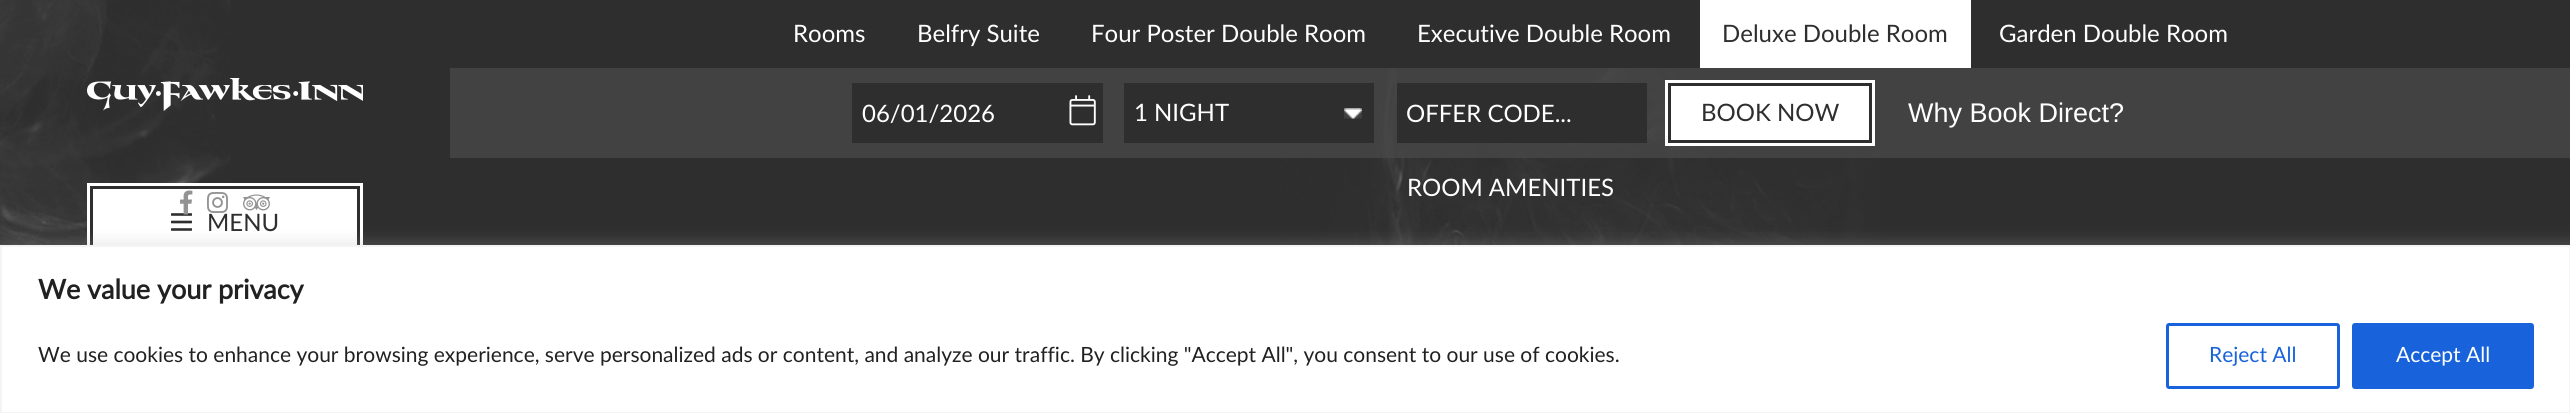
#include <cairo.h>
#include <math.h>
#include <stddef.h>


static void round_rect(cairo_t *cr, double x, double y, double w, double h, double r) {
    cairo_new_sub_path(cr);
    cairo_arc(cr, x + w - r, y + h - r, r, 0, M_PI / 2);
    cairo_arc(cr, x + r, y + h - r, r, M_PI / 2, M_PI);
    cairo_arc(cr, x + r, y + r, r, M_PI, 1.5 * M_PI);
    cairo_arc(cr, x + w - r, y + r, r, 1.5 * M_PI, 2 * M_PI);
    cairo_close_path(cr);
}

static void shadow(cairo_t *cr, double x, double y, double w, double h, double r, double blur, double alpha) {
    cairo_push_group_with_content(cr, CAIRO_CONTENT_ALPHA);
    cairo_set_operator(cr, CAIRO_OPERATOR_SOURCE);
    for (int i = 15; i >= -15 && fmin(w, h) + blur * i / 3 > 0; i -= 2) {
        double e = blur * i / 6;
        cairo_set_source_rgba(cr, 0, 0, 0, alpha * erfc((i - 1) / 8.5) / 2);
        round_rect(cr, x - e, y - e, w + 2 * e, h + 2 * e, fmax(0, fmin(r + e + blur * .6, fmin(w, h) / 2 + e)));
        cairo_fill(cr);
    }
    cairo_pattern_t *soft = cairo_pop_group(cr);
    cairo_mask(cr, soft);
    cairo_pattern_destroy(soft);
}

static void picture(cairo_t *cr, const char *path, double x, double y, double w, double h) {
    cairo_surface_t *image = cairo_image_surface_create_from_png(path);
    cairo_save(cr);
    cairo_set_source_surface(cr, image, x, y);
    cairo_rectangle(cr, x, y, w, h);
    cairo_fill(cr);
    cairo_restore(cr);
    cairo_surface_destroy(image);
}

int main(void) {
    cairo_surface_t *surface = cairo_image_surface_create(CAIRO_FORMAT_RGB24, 2570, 413);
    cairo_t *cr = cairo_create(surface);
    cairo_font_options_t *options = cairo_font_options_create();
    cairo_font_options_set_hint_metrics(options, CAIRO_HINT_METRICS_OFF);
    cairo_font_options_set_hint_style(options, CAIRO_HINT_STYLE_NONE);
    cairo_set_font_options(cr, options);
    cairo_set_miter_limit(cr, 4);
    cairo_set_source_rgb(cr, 0.18, 0.18, 0.18);
    cairo_paint(cr);
    cairo_select_font_face(cr, "Lato", CAIRO_FONT_SLANT_NORMAL, CAIRO_FONT_WEIGHT_NORMAL);
    cairo_set_font_size(cr, 24);
    cairo_set_source_rgb(cr, 1, 1, 1);
    cairo_move_to(cr, 793, 42);
    cairo_show_text(cr, "Rooms");
    cairo_move_to(cr, 917, 42);
    cairo_show_text(cr, "Belfry Suite");
    cairo_move_to(cr, 1091, 42);
    cairo_show_text(cr, "Four Poster Double Room");
    cairo_move_to(cr, 1417, 42);
    cairo_show_text(cr, "Executive Double Room");
    cairo_rectangle(cr, 1700, 0, 271, 68);
    cairo_fill(cr);
    cairo_set_source_rgb(cr, 0.18, 0.18, 0.18);
    cairo_move_to(cr, 1722, 42);
    cairo_show_text(cr, "Deluxe Double Room");
    cairo_set_source_rgb(cr, 1, 1, 1);
    cairo_move_to(cr, 1999, 42);
    cairo_show_text(cr, "Garden Double Room");
    picture(cr, "img1.png", 1280, 68, 601, 177);
    cairo_move_to(cr, 1407, 196);
    cairo_show_text(cr, "ROOM AMENITIES");
    picture(cr, "img2.png", 0, 0, 231, 245);
    picture(cr, "img3.png", 87, 78, 276, 33);
    cairo_rectangle(cr, 88.5, 184.5, 273, 69);
    cairo_set_line_width(cr, 3);
    cairo_stroke(cr);
    cairo_rectangle(cr, 93, 189, 264, 56);
    cairo_fill(cr);
    cairo_rectangle(cr, 91.5, 187.5, 267, 63);
    cairo_set_source_rgb(cr, 0.18, 0.18, 0.18);
    cairo_stroke(cr);
    picture(cr, "img7.png", 171, 213, 21, 18);
    picture(cr, "img4.png", 180, 190, 13, 25);
    picture(cr, "img5.png", 207, 192, 21, 21);
    picture(cr, "img6.png", 243, 194, 27, 17);
    cairo_move_to(cr, 207, 231);
    cairo_show_text(cr, "MENU");
    cairo_set_source_rgba(cr, 0.286, 0.282, 0.286, 0.8);
    cairo_rectangle(cr, 450, 68, 2120, 90);
    cairo_fill(cr);
    cairo_set_source_rgb(cr, 0.18, 0.18, 0.18);
    cairo_rectangle(cr, 852, 83, 251, 60);
    cairo_fill(cr);
    cairo_set_source_rgb(cr, 1, 1, 1);
    cairo_move_to(cr, 862, 122);
    cairo_show_text(cr, "06/01/2026");
    picture(cr, "img8.png", 1069, 95, 27, 31);
    cairo_set_source_rgb(cr, 0.18, 0.18, 0.18);
    cairo_rectangle(cr, 1124, 83, 250, 60);
    cairo_fill(cr);
    picture(cr, "img9.png", 1344, 108, 18, 11);
    cairo_set_source_rgb(cr, 1, 1, 1);
    cairo_move_to(cr, 1134, 121);
    cairo_show_text(cr, "1 NIGHT");
    cairo_set_source_rgb(cr, 0.18, 0.18, 0.18);
    cairo_rectangle(cr, 1397, 83, 250, 60);
    cairo_fill(cr);
    cairo_set_source_rgb(cr, 1, 1, 1);
    cairo_move_to(cr, 1406, 122);
    cairo_show_text(cr, "OFFER CODE...");
    cairo_rectangle(cr, 1666.5, 81.5, 207, 63);
    cairo_stroke(cr);
    cairo_rectangle(cr, 1669.5, 84.5, 201, 57);
    cairo_fill_preserve(cr);
    cairo_set_source_rgb(cr, 0.18, 0.18, 0.18);
    cairo_stroke(cr);
    cairo_move_to(cr, 1701, 121);
    cairo_show_text(cr, "BOOK NOW");
    cairo_select_font_face(cr, "Liberation Sans", CAIRO_FONT_SLANT_NORMAL, CAIRO_FONT_WEIGHT_NORMAL);
    cairo_set_font_size(cr, 27);
    cairo_set_source_rgb(cr, 1, 1, 1);
    cairo_move_to(cr, 1908, 122);
    cairo_show_text(cr, "Why Book Direct?");
    cairo_set_source_rgb(cr, 0.675, 0.671, 0.671);
    shadow(cr, 0, 243, 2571, 170, 0, 7.5, 0.3);
    cairo_set_source_rgb(cr, 1, 1, 1);
    cairo_rectangle(cr, 1, 246, 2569, 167);
    cairo_fill_preserve(cr);
    cairo_set_source_rgb(cr, 0.957, 0.957, 0.957);
    cairo_set_line_width(cr, 2);
    cairo_stroke(cr);
    cairo_select_font_face(cr, "Lato", CAIRO_FONT_SLANT_NORMAL, CAIRO_FONT_WEIGHT_BOLD);
    cairo_set_source_rgb(cr, 0.129, 0.129, 0.129);
    cairo_move_to(cr, 38, 299);
    cairo_show_text(cr, "We value your privacy");
    cairo_select_font_face(cr, "Lato", CAIRO_FONT_SLANT_NORMAL, CAIRO_FONT_WEIGHT_NORMAL);
    cairo_set_font_size(cr, 21);
    cairo_move_to(cr, 38, 362);
    cairo_show_text(cr, "We use cookies to enhance your browsing experience, serve personalized ads or content, and analyze our traffic. By clicking \"Accept All\", you consent to our use of cookies.");
    round_rect(cr, 2167.5, 324.5, 171, 63, 1.5);
    cairo_set_source_rgb(cr, 0.094, 0.388, 0.863);
    cairo_set_line_width(cr, 3);
    cairo_stroke(cr);
    cairo_move_to(cr, 2209, 362);
    cairo_show_text(cr, "Reject All");
    round_rect(cr, 2353.5, 324.5, 179, 63, 1.5);
    cairo_fill_preserve(cr);
    cairo_stroke(cr);
    cairo_set_source_rgb(cr, 1, 1, 1);
    cairo_move_to(cr, 2396, 362);
    cairo_show_text(cr, "Accept All");
    cairo_surface_write_to_png(surface, "page.png");
    cairo_font_options_destroy(options);
    cairo_destroy(cr);
    cairo_surface_destroy(surface);
    return 0;
}
